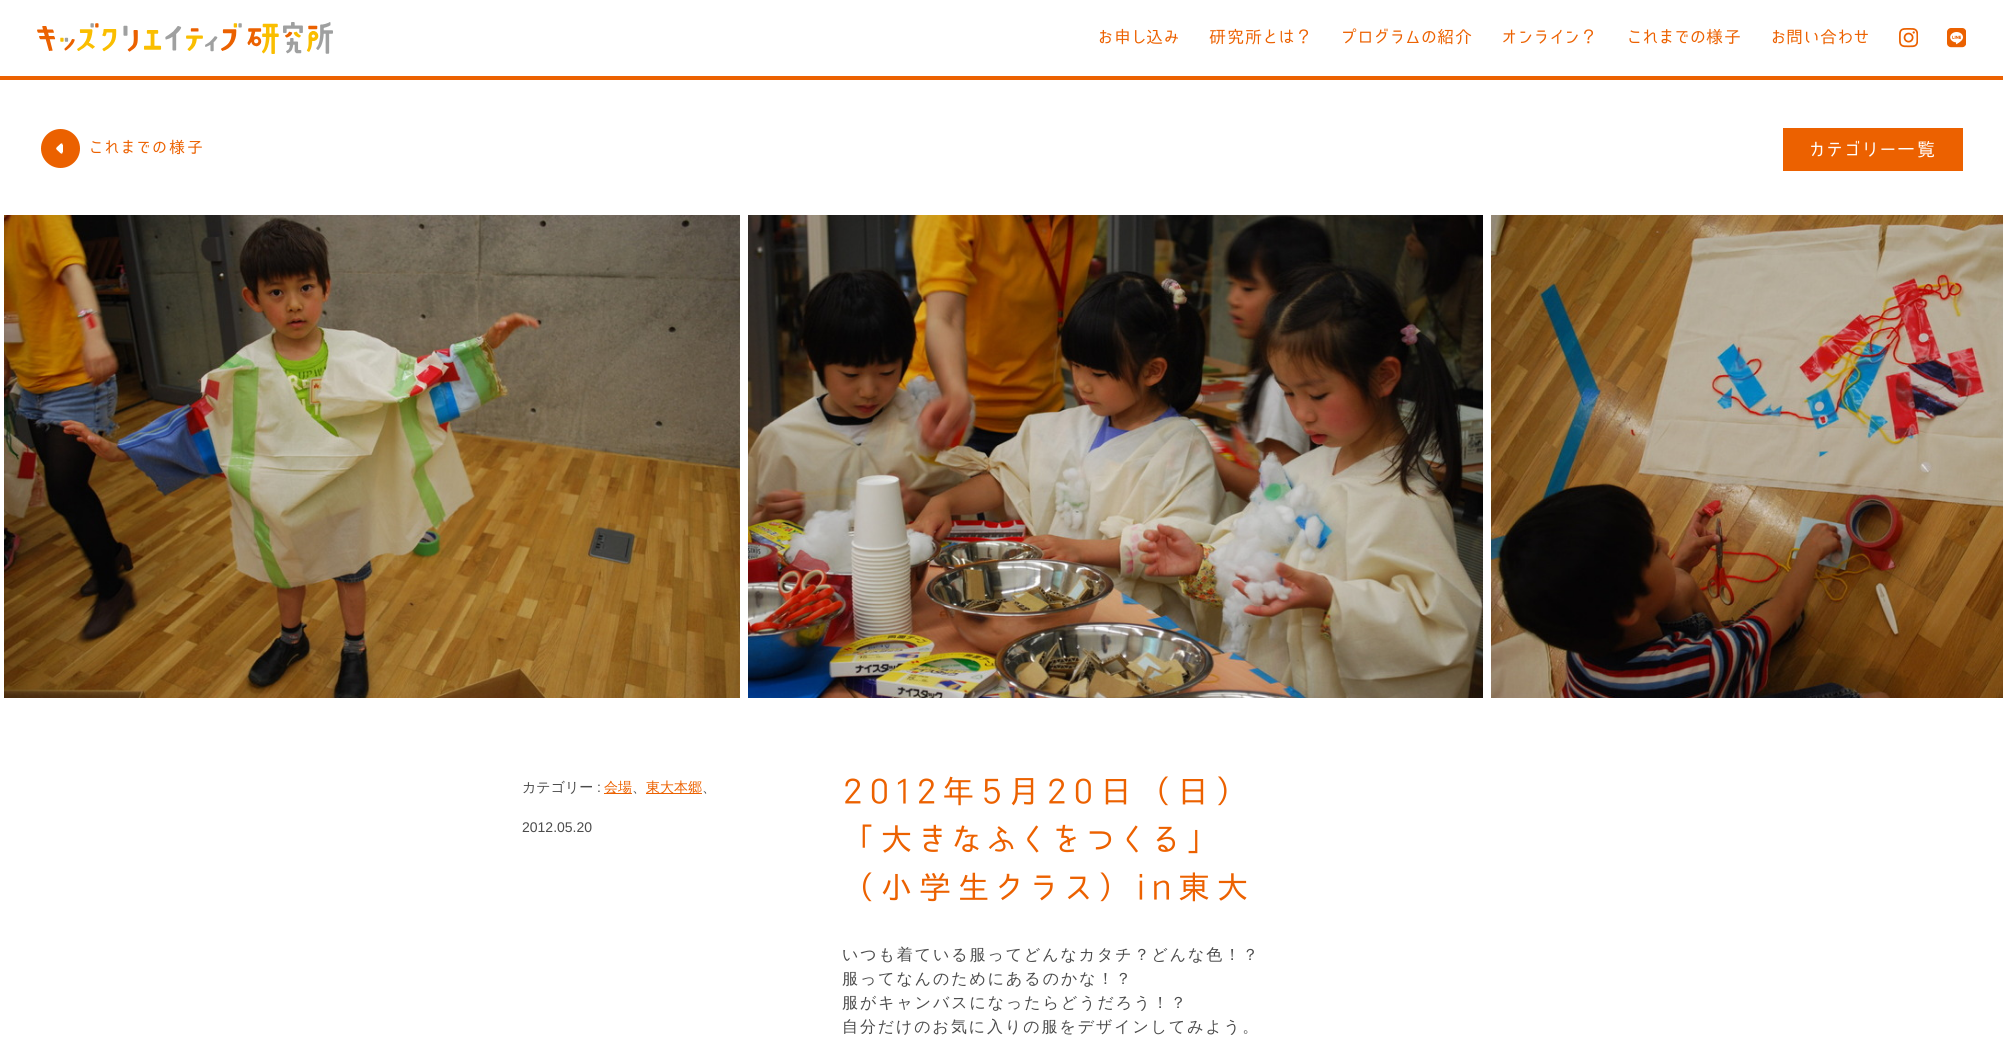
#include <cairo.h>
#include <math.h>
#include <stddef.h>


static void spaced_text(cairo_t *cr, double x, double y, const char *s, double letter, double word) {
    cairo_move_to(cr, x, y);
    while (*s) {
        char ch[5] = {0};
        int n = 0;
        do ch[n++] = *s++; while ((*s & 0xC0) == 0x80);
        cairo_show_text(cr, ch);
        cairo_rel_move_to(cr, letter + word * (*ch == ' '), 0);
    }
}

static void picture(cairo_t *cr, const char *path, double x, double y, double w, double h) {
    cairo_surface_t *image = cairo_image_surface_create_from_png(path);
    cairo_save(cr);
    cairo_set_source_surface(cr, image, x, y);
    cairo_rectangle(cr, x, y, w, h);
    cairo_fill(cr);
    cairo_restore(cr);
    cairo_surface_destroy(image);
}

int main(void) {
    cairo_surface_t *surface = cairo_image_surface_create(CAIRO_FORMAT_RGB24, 2003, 1037);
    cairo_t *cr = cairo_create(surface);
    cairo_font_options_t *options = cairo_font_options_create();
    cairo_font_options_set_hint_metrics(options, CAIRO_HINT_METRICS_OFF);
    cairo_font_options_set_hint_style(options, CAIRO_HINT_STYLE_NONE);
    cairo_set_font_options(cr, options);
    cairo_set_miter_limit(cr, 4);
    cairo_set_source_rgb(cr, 1, 1, 1);
    cairo_paint(cr);
    cairo_set_source_rgb(cr, 0.922, 0.38, 0);
    cairo_rectangle(cr, 0, 76, 2003, 4);
    cairo_fill(cr);
    picture(cr, "img1.png", 37, 22, 296, 32);
    cairo_select_font_face(cr, "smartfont", CAIRO_FONT_SLANT_NORMAL, CAIRO_FONT_WEIGHT_NORMAL);
    cairo_set_font_size(cr, 17);
    spaced_text(cr, 1098, 43, "お", 1, 0);
    cairo_select_font_face(cr, "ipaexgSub", CAIRO_FONT_SLANT_NORMAL, CAIRO_FONT_WEIGHT_NORMAL);
    spaced_text(cr, 1114, 43, "申", 1, 0);
    cairo_select_font_face(cr, "smartfont", CAIRO_FONT_SLANT_NORMAL, CAIRO_FONT_WEIGHT_NORMAL);
    spaced_text(cr, 1132, 43, "し", 1, 0);
    cairo_select_font_face(cr, "ipaexgSub", CAIRO_FONT_SLANT_NORMAL, CAIRO_FONT_WEIGHT_NORMAL);
    spaced_text(cr, 1146, 43, "込", 1, 0);
    cairo_select_font_face(cr, "smartfont", CAIRO_FONT_SLANT_NORMAL, CAIRO_FONT_WEIGHT_NORMAL);
    spaced_text(cr, 1164, 43, "み", 1, 0);
    cairo_select_font_face(cr, "ipaexgSub", CAIRO_FONT_SLANT_NORMAL, CAIRO_FONT_WEIGHT_NORMAL);
    spaced_text(cr, 1209, 43, "研究所", 1, 0);
    cairo_select_font_face(cr, "smartfont", CAIRO_FONT_SLANT_NORMAL, CAIRO_FONT_WEIGHT_NORMAL);
    spaced_text(cr, 1263, 43, "とは", 1, 0);
    cairo_select_font_face(cr, "ipaexgSub", CAIRO_FONT_SLANT_NORMAL, CAIRO_FONT_WEIGHT_NORMAL);
    spaced_text(cr, 1295, 43, "？", 1, 0);
    cairo_select_font_face(cr, "smartfont", CAIRO_FONT_SLANT_NORMAL, CAIRO_FONT_WEIGHT_NORMAL);
    spaced_text(cr, 1341, 43, "プログラムの", 1, 0);
    cairo_select_font_face(cr, "ipaexgSub", CAIRO_FONT_SLANT_NORMAL, CAIRO_FONT_WEIGHT_NORMAL);
    spaced_text(cr, 1437, 43, "紹介", 1, 0);
    cairo_select_font_face(cr, "smartfont", CAIRO_FONT_SLANT_NORMAL, CAIRO_FONT_WEIGHT_NORMAL);
    spaced_text(cr, 1502, 43, "オンライン", 1, 0);
    cairo_select_font_face(cr, "ipaexgSub", CAIRO_FONT_SLANT_NORMAL, CAIRO_FONT_WEIGHT_NORMAL);
    spaced_text(cr, 1580, 43, "？", 1, 0);
    cairo_select_font_face(cr, "smartfont", CAIRO_FONT_SLANT_NORMAL, CAIRO_FONT_WEIGHT_NORMAL);
    spaced_text(cr, 1627, 43, "これまでの", 1, 0);
    cairo_select_font_face(cr, "ipaexgSub", CAIRO_FONT_SLANT_NORMAL, CAIRO_FONT_WEIGHT_NORMAL);
    spaced_text(cr, 1706, 43, "様子", 1, 0);
    cairo_select_font_face(cr, "smartfont", CAIRO_FONT_SLANT_NORMAL, CAIRO_FONT_WEIGHT_NORMAL);
    spaced_text(cr, 1771, 43, "お", 1, 0);
    cairo_select_font_face(cr, "ipaexgSub", CAIRO_FONT_SLANT_NORMAL, CAIRO_FONT_WEIGHT_NORMAL);
    spaced_text(cr, 1786, 43, "問", 1, 0);
    cairo_select_font_face(cr, "smartfont", CAIRO_FONT_SLANT_NORMAL, CAIRO_FONT_WEIGHT_NORMAL);
    spaced_text(cr, 1804, 43, "い", 1, 0);
    cairo_select_font_face(cr, "ipaexgSub", CAIRO_FONT_SLANT_NORMAL, CAIRO_FONT_WEIGHT_NORMAL);
    spaced_text(cr, 1820, 43, "合", 1, 0);
    cairo_select_font_face(cr, "smartfont", CAIRO_FONT_SLANT_NORMAL, CAIRO_FONT_WEIGHT_NORMAL);
    spaced_text(cr, 1838, 43, "わせ", 1, 0);
    picture(cr, "img2.png", 1899, 28, 19, 20);
    picture(cr, "img3.png", 1947, 28, 19, 20);
    picture(cr, "img4.png", 41, 129, 39, 39);
    cairo_set_font_size(cr, 16);
    spaced_text(cr, 89, 153, "これまでの", 1.9, 0);
    cairo_select_font_face(cr, "ipaexgSub", CAIRO_FONT_SLANT_NORMAL, CAIRO_FONT_WEIGHT_NORMAL);
    spaced_text(cr, 169, 153, "様子", 1.9, 0);
    cairo_rectangle(cr, 1783, 128, 180, 43);
    cairo_fill(cr);
    cairo_select_font_face(cr, "smartfont", CAIRO_FONT_SLANT_NORMAL, CAIRO_FONT_WEIGHT_NORMAL);
    cairo_set_font_size(cr, 18);
    cairo_set_source_rgb(cr, 1, 1, 1);
    spaced_text(cr, 1809, 156, "カテゴリー", 2, 0);
    cairo_select_font_face(cr, "ipaexgSub", CAIRO_FONT_SLANT_NORMAL, CAIRO_FONT_WEIGHT_NORMAL);
    spaced_text(cr, 1897, 156, "一覧", 2, 0);
    picture(cr, "img5.png", 4, 215, 736, 483);
    picture(cr, "img6.png", 748, 215, 735, 483);
    picture(cr, "img7.png", 1491, 215, 512, 483);
    cairo_select_font_face(cr, "WenQuanYi Zen Hei Medium", CAIRO_FONT_SLANT_NORMAL, CAIRO_FONT_WEIGHT_NORMAL);
    cairo_set_font_size(cr, 14);
    cairo_set_source_rgb(cr, 0.294, 0.294, 0.294);
    cairo_move_to(cr, 522, 792);
    cairo_show_text(cr, "カテゴリー");
    cairo_select_font_face(cr, "Liberation Sans", CAIRO_FONT_SLANT_NORMAL, CAIRO_FONT_WEIGHT_NORMAL);
    cairo_move_to(cr, 597, 792);
    cairo_show_text(cr, ":");
    cairo_set_source_rgb(cr, 0.922, 0.38, 0);
    cairo_rectangle(cr, 604, 793, 28, 1);
    cairo_fill(cr);
    cairo_select_font_face(cr, "WenQuanYi Zen Hei Medium", CAIRO_FONT_SLANT_NORMAL, CAIRO_FONT_WEIGHT_NORMAL);
    cairo_move_to(cr, 604, 792);
    cairo_show_text(cr, "会場");
    cairo_set_source_rgb(cr, 0.294, 0.294, 0.294);
    cairo_move_to(cr, 632, 792);
    cairo_show_text(cr, "、");
    cairo_set_source_rgb(cr, 0.922, 0.38, 0);
    cairo_rectangle(cr, 646, 793, 56, 1);
    cairo_fill(cr);
    cairo_move_to(cr, 646, 792);
    cairo_show_text(cr, "東大本郷");
    cairo_set_source_rgb(cr, 0.294, 0.294, 0.294);
    cairo_move_to(cr, 702, 792);
    cairo_show_text(cr, "、");
    cairo_select_font_face(cr, "Liberation Sans", CAIRO_FONT_SLANT_NORMAL, CAIRO_FONT_WEIGHT_NORMAL);
    cairo_move_to(cr, 522, 832);
    cairo_show_text(cr, "2012.05.20");
    cairo_select_font_face(cr, "smartfont", CAIRO_FONT_SLANT_NORMAL, CAIRO_FONT_WEIGHT_NORMAL);
    cairo_set_font_size(cr, 32);
    cairo_set_source_rgb(cr, 0.922, 0.38, 0);
    spaced_text(cr, 842, 803, "2012", 6.5, 0);
    cairo_select_font_face(cr, "ipaexgSub", CAIRO_FONT_SLANT_NORMAL, CAIRO_FONT_WEIGHT_NORMAL);
    spaced_text(cr, 942, 803, "年", 6.5, 0);
    cairo_select_font_face(cr, "smartfont", CAIRO_FONT_SLANT_NORMAL, CAIRO_FONT_WEIGHT_NORMAL);
    spaced_text(cr, 981, 803, "5", 6.5, 0);
    cairo_select_font_face(cr, "ipaexgSub", CAIRO_FONT_SLANT_NORMAL, CAIRO_FONT_WEIGHT_NORMAL);
    spaced_text(cr, 1008, 803, "月", 6.5, 0);
    cairo_select_font_face(cr, "smartfont", CAIRO_FONT_SLANT_NORMAL, CAIRO_FONT_WEIGHT_NORMAL);
    spaced_text(cr, 1046, 803, "20", 6.5, 0);
    cairo_select_font_face(cr, "ipaexgSub", CAIRO_FONT_SLANT_NORMAL, CAIRO_FONT_WEIGHT_NORMAL);
    spaced_text(cr, 1100, 803, "日（日）", 6.5, 0);
    spaced_text(cr, 842, 851, "「大", 6.5, 0);
    cairo_select_font_face(cr, "smartfont", CAIRO_FONT_SLANT_NORMAL, CAIRO_FONT_WEIGHT_NORMAL);
    spaced_text(cr, 918, 851, "きなふくをつくる", 6.5, 0);
    cairo_select_font_face(cr, "ipaexgSub", CAIRO_FONT_SLANT_NORMAL, CAIRO_FONT_WEIGHT_NORMAL);
    spaced_text(cr, 1186, 851, "」", 6.5, 0);
    spaced_text(cr, 842, 899, "（小学生", 6.5, 0);
    cairo_select_font_face(cr, "smartfont", CAIRO_FONT_SLANT_NORMAL, CAIRO_FONT_WEIGHT_NORMAL);
    spaced_text(cr, 995, 899, "クラス", 6.5, 0);
    cairo_select_font_face(cr, "ipaexgSub", CAIRO_FONT_SLANT_NORMAL, CAIRO_FONT_WEIGHT_NORMAL);
    spaced_text(cr, 1098, 899, "）", 6.5, 0);
    cairo_select_font_face(cr, "smartfont", CAIRO_FONT_SLANT_NORMAL, CAIRO_FONT_WEIGHT_NORMAL);
    spaced_text(cr, 1137, 899, "in", 6.5, 0);
    cairo_select_font_face(cr, "ipaexgSub", CAIRO_FONT_SLANT_NORMAL, CAIRO_FONT_WEIGHT_NORMAL);
    spaced_text(cr, 1178, 899, "東大", 6.5, 0);
    cairo_select_font_face(cr, "WenQuanYi Zen Hei Medium", CAIRO_FONT_SLANT_NORMAL, CAIRO_FONT_WEIGHT_NORMAL);
    cairo_set_font_size(cr, 16);
    cairo_set_source_rgb(cr, 0.294, 0.294, 0.294);
    spaced_text(cr, 842, 960, "いつも着ている服ってどんなカタチ？どんな色！？", 1.9, 0);
    spaced_text(cr, 842, 984, "服ってなんのためにあるのかな！？", 1.9, 0);
    spaced_text(cr, 842, 1008, "服がキャンバスになったらどうだろう！？", 1.9, 0);
    spaced_text(cr, 842, 1032, "自分だけのお気に入りの服をデザインしてみよう。", 1.9, 0);
    cairo_surface_write_to_png(surface, "page.png");
    cairo_font_options_destroy(options);
    cairo_destroy(cr);
    cairo_surface_destroy(surface);
    return 0;
}
